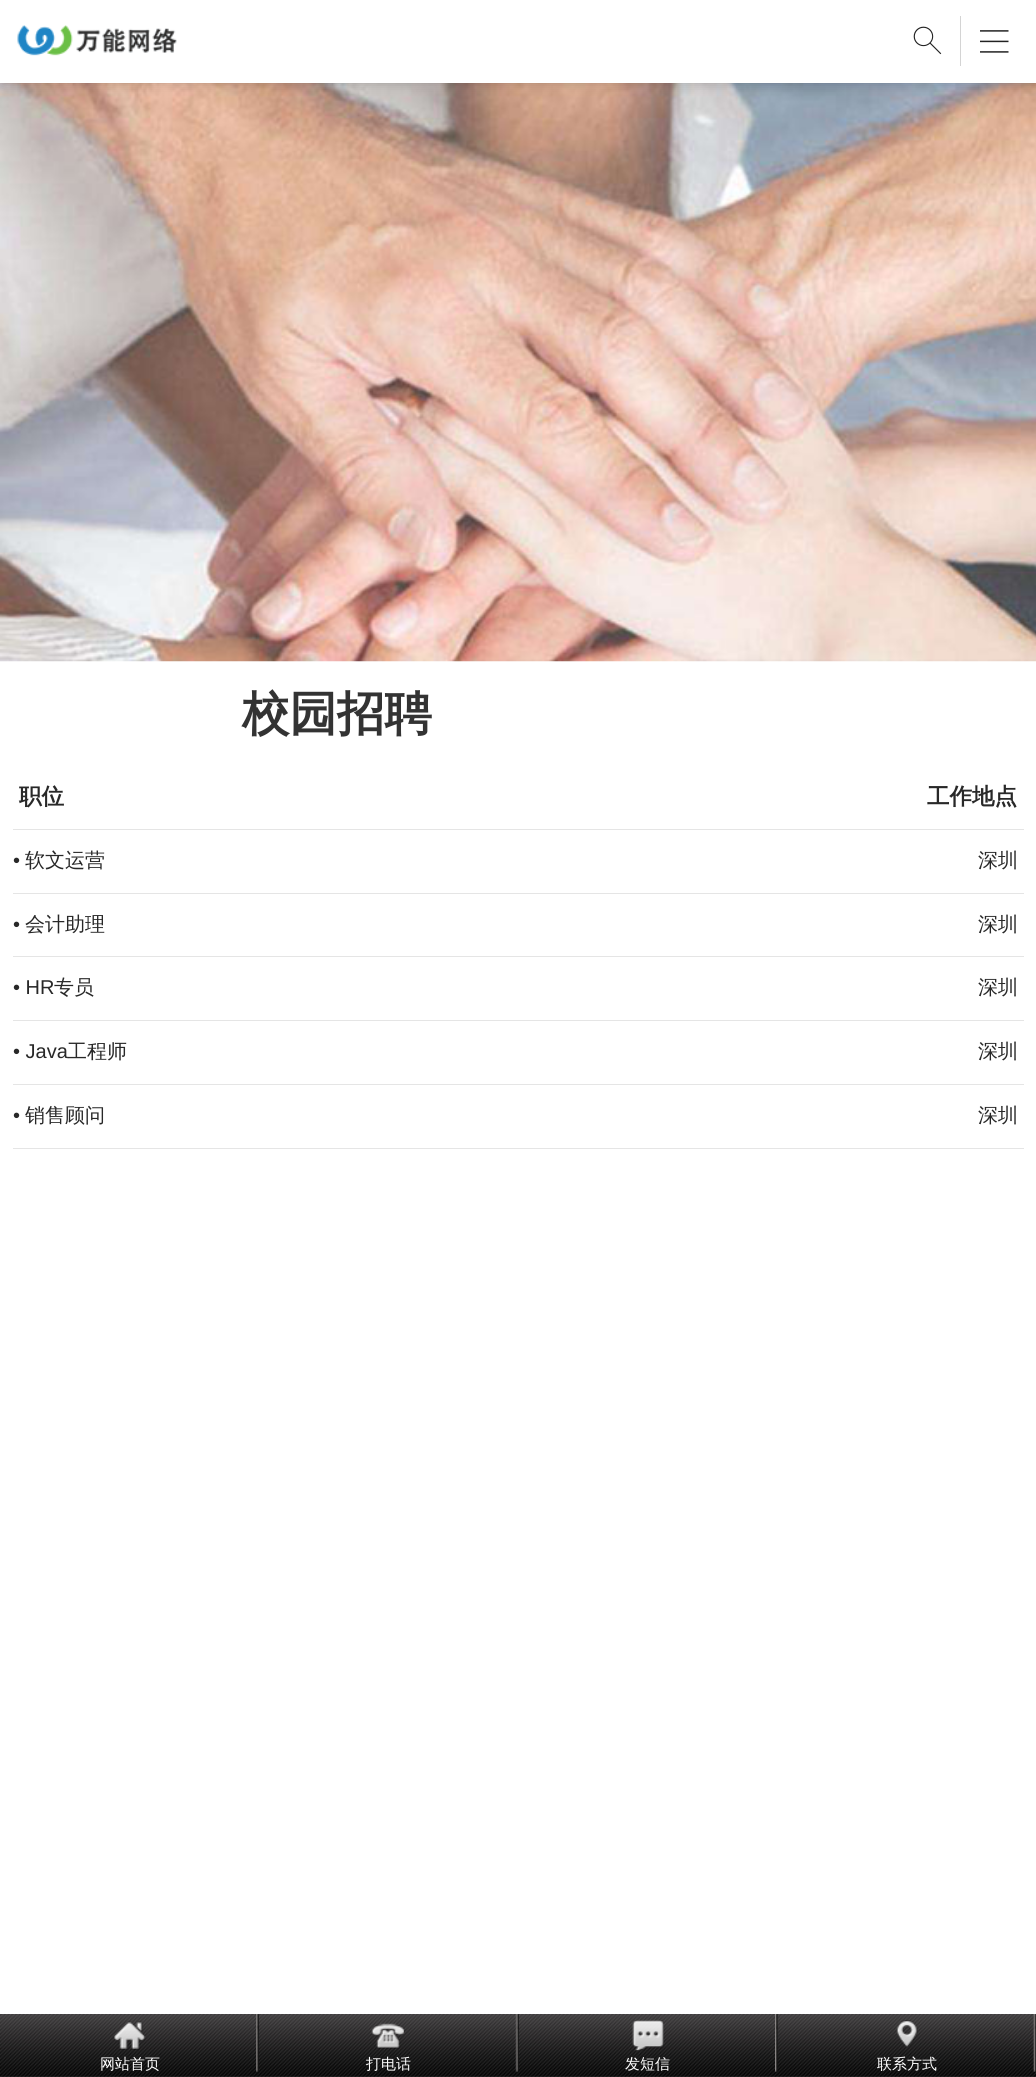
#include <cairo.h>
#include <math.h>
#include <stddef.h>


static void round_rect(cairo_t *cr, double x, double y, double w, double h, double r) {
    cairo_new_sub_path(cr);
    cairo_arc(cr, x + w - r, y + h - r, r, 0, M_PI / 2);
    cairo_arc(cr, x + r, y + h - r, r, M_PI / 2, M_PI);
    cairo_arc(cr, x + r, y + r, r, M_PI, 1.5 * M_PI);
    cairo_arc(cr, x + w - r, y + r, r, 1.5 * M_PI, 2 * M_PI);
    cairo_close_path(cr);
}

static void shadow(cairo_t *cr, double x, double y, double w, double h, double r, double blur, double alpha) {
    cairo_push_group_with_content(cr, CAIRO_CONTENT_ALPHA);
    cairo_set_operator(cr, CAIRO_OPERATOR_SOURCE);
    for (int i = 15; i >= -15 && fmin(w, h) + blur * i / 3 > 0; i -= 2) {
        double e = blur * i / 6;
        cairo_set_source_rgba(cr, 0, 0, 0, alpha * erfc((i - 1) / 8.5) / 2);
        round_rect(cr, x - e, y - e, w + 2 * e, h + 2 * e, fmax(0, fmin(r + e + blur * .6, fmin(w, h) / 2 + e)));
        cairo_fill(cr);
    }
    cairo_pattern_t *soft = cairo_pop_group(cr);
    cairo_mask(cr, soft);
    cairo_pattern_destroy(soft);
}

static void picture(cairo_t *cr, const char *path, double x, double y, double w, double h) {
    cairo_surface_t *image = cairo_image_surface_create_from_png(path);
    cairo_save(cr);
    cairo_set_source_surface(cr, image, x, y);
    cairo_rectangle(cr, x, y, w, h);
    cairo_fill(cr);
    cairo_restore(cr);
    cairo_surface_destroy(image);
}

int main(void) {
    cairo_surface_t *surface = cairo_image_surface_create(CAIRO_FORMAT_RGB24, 1036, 2077);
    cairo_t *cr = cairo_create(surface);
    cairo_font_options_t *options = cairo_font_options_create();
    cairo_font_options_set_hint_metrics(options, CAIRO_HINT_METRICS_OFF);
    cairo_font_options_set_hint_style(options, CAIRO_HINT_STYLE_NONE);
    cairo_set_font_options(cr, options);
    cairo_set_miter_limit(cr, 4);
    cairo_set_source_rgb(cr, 1, 1, 1);
    cairo_paint(cr);
    picture(cr, "img4.png", 0, 83, 1036, 579);
    cairo_set_source_rgb(cr, 0, 0, 0);
    shadow(cr, 3, 0, 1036, 83, 0, 6, 0.2);
    cairo_set_source_rgb(cr, 1, 1, 1);
    cairo_rectangle(cr, 0, 0, 1036, 83);
    cairo_fill(cr);
    picture(cr, "img1.png", 17, 25, 160, 31);
    picture(cr, "img2.png", 913, 26, 29, 29);
    cairo_set_source_rgb(cr, 0.831, 0.831, 0.831);
    cairo_rectangle(cr, 960, 16, 1, 50);
    cairo_fill(cr);
    picture(cr, "img3.png", 980, 30, 29, 23);
    cairo_select_font_face(cr, "WenQuanYi Zen Hei", CAIRO_FONT_SLANT_NORMAL, CAIRO_FONT_WEIGHT_BOLD);
    cairo_set_font_size(cr, 47.5);
    cairo_set_source_rgb(cr, 0.2, 0.2, 0.2);
    cairo_move_to(cr, 242, 730);
    cairo_show_text(cr, "校园招聘");
    cairo_set_font_size(cr, 22.5);
    cairo_set_source_rgb(cr, 0.157, 0.157, 0.157);
    cairo_move_to(cr, 19, 804);
    cairo_show_text(cr, "职位");
    cairo_move_to(cr, 927, 804);
    cairo_show_text(cr, "工作地点");
    cairo_set_source_rgb(cr, 0.898, 0.898, 0.898);
    cairo_rectangle(cr, 13, 829, 1011, 1);
    cairo_fill(cr);
    cairo_select_font_face(cr, "Liberation Sans", CAIRO_FONT_SLANT_NORMAL, CAIRO_FONT_WEIGHT_NORMAL);
    cairo_set_font_size(cr, 20);
    cairo_set_source_rgb(cr, 0.157, 0.157, 0.157);
    cairo_move_to(cr, 13, 867);
    cairo_show_text(cr, "•");
    cairo_select_font_face(cr, "WenQuanYi Zen Hei Medium", CAIRO_FONT_SLANT_NORMAL, CAIRO_FONT_WEIGHT_NORMAL);
    cairo_move_to(cr, 25, 867);
    cairo_show_text(cr, "软文运营");
    cairo_move_to(cr, 978, 867);
    cairo_show_text(cr, "深圳");
    cairo_set_source_rgb(cr, 0.898, 0.898, 0.898);
    cairo_rectangle(cr, 13, 893, 1011, 1);
    cairo_fill(cr);
    cairo_select_font_face(cr, "Liberation Sans", CAIRO_FONT_SLANT_NORMAL, CAIRO_FONT_WEIGHT_NORMAL);
    cairo_set_source_rgb(cr, 0.157, 0.157, 0.157);
    cairo_move_to(cr, 13, 931);
    cairo_show_text(cr, "•");
    cairo_select_font_face(cr, "WenQuanYi Zen Hei Medium", CAIRO_FONT_SLANT_NORMAL, CAIRO_FONT_WEIGHT_NORMAL);
    cairo_move_to(cr, 25, 931);
    cairo_show_text(cr, "会计助理");
    cairo_move_to(cr, 978, 931);
    cairo_show_text(cr, "深圳");
    cairo_set_source_rgb(cr, 0.898, 0.898, 0.898);
    cairo_rectangle(cr, 13, 956, 1011, 1);
    cairo_fill(cr);
    cairo_select_font_face(cr, "Liberation Sans", CAIRO_FONT_SLANT_NORMAL, CAIRO_FONT_WEIGHT_NORMAL);
    cairo_set_source_rgb(cr, 0.157, 0.157, 0.157);
    cairo_move_to(cr, 13, 994);
    cairo_show_text(cr, "• HR");
    cairo_select_font_face(cr, "WenQuanYi Zen Hei Medium", CAIRO_FONT_SLANT_NORMAL, CAIRO_FONT_WEIGHT_NORMAL);
    cairo_move_to(cr, 54, 994);
    cairo_show_text(cr, "专员");
    cairo_move_to(cr, 978, 994);
    cairo_show_text(cr, "深圳");
    cairo_set_source_rgb(cr, 0.898, 0.898, 0.898);
    cairo_rectangle(cr, 13, 1020, 1011, 1);
    cairo_fill(cr);
    cairo_select_font_face(cr, "Liberation Sans", CAIRO_FONT_SLANT_NORMAL, CAIRO_FONT_WEIGHT_NORMAL);
    cairo_set_source_rgb(cr, 0.157, 0.157, 0.157);
    cairo_move_to(cr, 13, 1058);
    cairo_show_text(cr, "• Java");
    cairo_select_font_face(cr, "WenQuanYi Zen Hei Medium", CAIRO_FONT_SLANT_NORMAL, CAIRO_FONT_WEIGHT_NORMAL);
    cairo_move_to(cr, 67, 1058);
    cairo_show_text(cr, "工程师");
    cairo_move_to(cr, 978, 1058);
    cairo_show_text(cr, "深圳");
    cairo_set_source_rgb(cr, 0.898, 0.898, 0.898);
    cairo_rectangle(cr, 13, 1084, 1011, 1);
    cairo_fill(cr);
    cairo_select_font_face(cr, "Liberation Sans", CAIRO_FONT_SLANT_NORMAL, CAIRO_FONT_WEIGHT_NORMAL);
    cairo_set_source_rgb(cr, 0.157, 0.157, 0.157);
    cairo_move_to(cr, 13, 1122);
    cairo_show_text(cr, "•");
    cairo_select_font_face(cr, "WenQuanYi Zen Hei Medium", CAIRO_FONT_SLANT_NORMAL, CAIRO_FONT_WEIGHT_NORMAL);
    cairo_move_to(cr, 25, 1122);
    cairo_show_text(cr, "销售顾问");
    cairo_move_to(cr, 978, 1122);
    cairo_show_text(cr, "深圳");
    cairo_set_source_rgb(cr, 0.898, 0.898, 0.898);
    cairo_rectangle(cr, 13, 1148, 1011, 1);
    cairo_fill(cr);
    picture(cr, "img5.png", 0, 2014, 1036, 63);
    picture(cr, "img6.png", 256, 2014, 3, 58);
    picture(cr, "img7.png", 114, 2021, 32, 29);
    cairo_set_font_size(cr, 15);
    cairo_set_source_rgb(cr, 1, 1, 1);
    cairo_move_to(cr, 100, 2069);
    cairo_show_text(cr, "网站首页");
    picture(cr, "img8.png", 515, 2014, 4, 58);
    picture(cr, "img9.png", 371, 2023, 33, 26);
    cairo_move_to(cr, 366, 2069);
    cairo_show_text(cr, "打电话");
    picture(cr, "img10.png", 775, 2014, 3, 58);
    picture(cr, "img11.png", 632, 2020, 32, 31);
    cairo_move_to(cr, 625, 2069);
    cairo_show_text(cr, "发短信");
    picture(cr, "img12.png", 1033, 2014, 3, 58);
    picture(cr, "img13.png", 896, 2020, 22, 27);
    cairo_move_to(cr, 877, 2069);
    cairo_show_text(cr, "联系方式");
    cairo_surface_write_to_png(surface, "page.png");
    cairo_font_options_destroy(options);
    cairo_destroy(cr);
    cairo_surface_destroy(surface);
    return 0;
}
